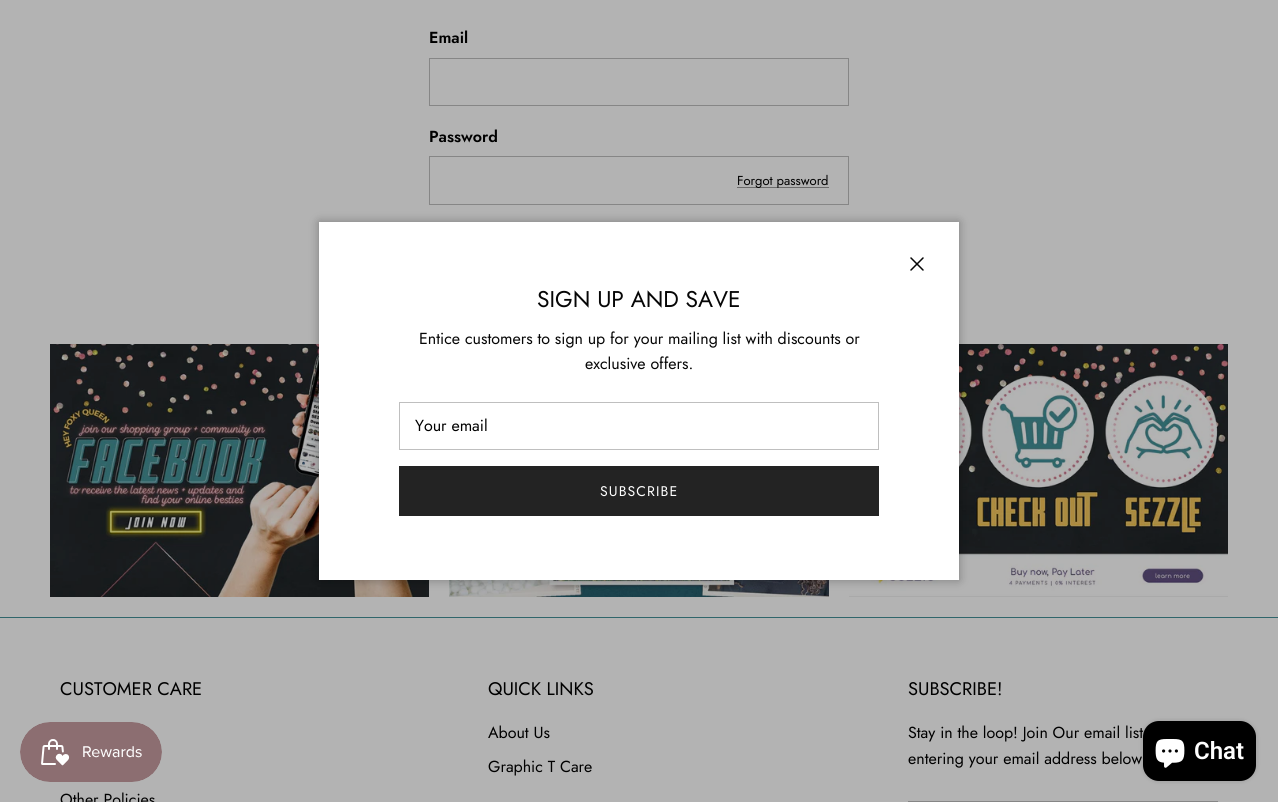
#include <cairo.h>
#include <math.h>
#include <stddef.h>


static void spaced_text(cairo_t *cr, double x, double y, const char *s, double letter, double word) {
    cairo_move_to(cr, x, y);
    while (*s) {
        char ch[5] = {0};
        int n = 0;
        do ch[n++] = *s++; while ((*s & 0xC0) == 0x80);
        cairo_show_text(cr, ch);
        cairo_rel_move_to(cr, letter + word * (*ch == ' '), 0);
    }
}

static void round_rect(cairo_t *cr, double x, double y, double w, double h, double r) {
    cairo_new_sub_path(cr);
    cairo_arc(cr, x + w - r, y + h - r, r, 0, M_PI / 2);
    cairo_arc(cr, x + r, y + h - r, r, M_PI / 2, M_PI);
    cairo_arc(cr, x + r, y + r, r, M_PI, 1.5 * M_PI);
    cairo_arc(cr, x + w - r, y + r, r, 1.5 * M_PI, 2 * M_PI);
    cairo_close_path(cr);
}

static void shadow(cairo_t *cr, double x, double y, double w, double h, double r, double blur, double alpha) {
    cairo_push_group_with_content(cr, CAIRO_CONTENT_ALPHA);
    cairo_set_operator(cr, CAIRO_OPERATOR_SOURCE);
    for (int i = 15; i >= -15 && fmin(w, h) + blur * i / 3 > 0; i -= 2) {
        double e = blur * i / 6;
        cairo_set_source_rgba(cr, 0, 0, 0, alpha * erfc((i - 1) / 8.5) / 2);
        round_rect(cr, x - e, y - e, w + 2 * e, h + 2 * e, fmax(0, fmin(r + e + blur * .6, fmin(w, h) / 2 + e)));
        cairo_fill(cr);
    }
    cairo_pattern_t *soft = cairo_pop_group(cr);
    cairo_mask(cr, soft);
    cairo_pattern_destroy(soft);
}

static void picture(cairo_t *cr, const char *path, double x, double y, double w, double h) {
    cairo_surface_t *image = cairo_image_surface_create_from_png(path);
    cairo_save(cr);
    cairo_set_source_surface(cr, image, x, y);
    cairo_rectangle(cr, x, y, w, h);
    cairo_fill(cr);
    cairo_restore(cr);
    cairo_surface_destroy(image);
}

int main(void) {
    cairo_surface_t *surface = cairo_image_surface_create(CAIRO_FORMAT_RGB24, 1278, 802);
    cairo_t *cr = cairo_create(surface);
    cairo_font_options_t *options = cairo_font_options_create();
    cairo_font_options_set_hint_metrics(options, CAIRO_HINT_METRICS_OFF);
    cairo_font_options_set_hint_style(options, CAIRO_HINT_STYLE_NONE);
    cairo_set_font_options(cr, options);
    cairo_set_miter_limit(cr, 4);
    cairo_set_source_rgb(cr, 0.702, 0.702, 0.702);
    cairo_paint(cr);
    cairo_select_font_face(cr, "Jost SemiBold", CAIRO_FONT_SLANT_NORMAL, CAIRO_FONT_WEIGHT_NORMAL);
    cairo_set_font_size(cr, 16);
    cairo_set_source_rgb(cr, 0, 0, 0);
    cairo_move_to(cr, 429, 43);
    cairo_show_text(cr, "Email");
    cairo_rectangle(cr, 429.5, 58.5, 419, 47);
    cairo_set_source_rgb(cr, 0.525, 0.525, 0.525);
    cairo_set_line_width(cr, 1);
    cairo_stroke(cr);
    cairo_set_source_rgb(cr, 0, 0, 0);
    cairo_move_to(cr, 429, 142);
    cairo_show_text(cr, "Password");
    cairo_rectangle(cr, 429.5, 156.5, 419, 48);
    cairo_set_source_rgb(cr, 0.525, 0.525, 0.525);
    cairo_stroke(cr);
    cairo_set_source_rgb(cr, 0.42, 0.42, 0.42);
    cairo_rectangle(cr, 737, 187, 92, 1);
    cairo_fill(cr);
    cairo_select_font_face(cr, "Jost", CAIRO_FONT_SLANT_NORMAL, CAIRO_FONT_WEIGHT_NORMAL);
    cairo_set_font_size(cr, 13);
    cairo_set_source_rgb(cr, 0, 0, 0);
    cairo_move_to(cr, 737, 185);
    cairo_show_text(cr, "Forgot password");
    picture(cr, "img1.png", 50, 344, 379, 253);
    picture(cr, "img2.png", 449, 580, 380, 17);
    picture(cr, "img3.png", 849, 344, 379, 253);
    cairo_set_source_rgb(cr, 0, 0, 0);
    shadow(cr, 319, 222, 640, 358, 0, 5, 0.3);
    cairo_set_source_rgb(cr, 1, 1, 1);
    cairo_rectangle(cr, 319, 222, 640, 358);
    cairo_fill(cr);
    cairo_new_path(cr);
    cairo_move_to(cr, 923, 258);
    cairo_line_to(cr, 911, 270);
    cairo_move_to(cr, 911, 258);
    cairo_line_to(cr, 923, 270);
    cairo_set_source_rgb(cr, 0.027, 0.027, 0.027);
    cairo_set_line_width(cr, 1.5);
    cairo_set_line_cap(cr, CAIRO_LINE_CAP_ROUND);
    cairo_set_line_join(cr, CAIRO_LINE_JOIN_ROUND);
    cairo_stroke(cr);
    cairo_set_font_size(cr, 22.75);
    cairo_move_to(cr, 537, 307);
    cairo_show_text(cr, "SIGN UP AND SAVE");
    cairo_set_font_size(cr, 16);
    cairo_move_to(cr, 419, 344);
    cairo_show_text(cr, "Entice customers to sign up for your mailing list with discounts or");
    cairo_move_to(cr, 585, 369);
    cairo_show_text(cr, "exclusive offers.");
    cairo_rectangle(cr, 399.5, 402.5, 479, 47);
    cairo_set_source_rgb(cr, 0.749, 0.749, 0.749);
    cairo_set_line_width(cr, 1);
    cairo_set_line_cap(cr, CAIRO_LINE_CAP_BUTT);
    cairo_set_line_join(cr, CAIRO_LINE_JOIN_MITER);
    cairo_stroke(cr);
    cairo_set_source_rgb(cr, 0, 0, 0);
    cairo_move_to(cr, 415, 431);
    cairo_show_text(cr, "Your email");
    cairo_set_source_rgb(cr, 0.137, 0.137, 0.137);
    cairo_rectangle(cr, 399, 466, 480, 50);
    cairo_fill(cr);
    cairo_set_font_size(cr, 14);
    cairo_set_source_rgb(cr, 1, 1, 1);
    spaced_text(cr, 600, 496, "SUBSCRIBE", 1.1, 0);
    cairo_set_source_rgb(cr, 0.188, 0.4, 0.42);
    cairo_rectangle(cr, 0, 617, 1278, 1);
    cairo_fill(cr);
    cairo_set_font_size(cr, 18.25);
    cairo_set_source_rgb(cr, 0, 0, 0);
    cairo_move_to(cr, 60, 695);
    cairo_show_text(cr, "CUSTOMER CARE");
    cairo_set_font_size(cr, 16);
    cairo_move_to(cr, 60, 805);
    cairo_show_text(cr, "Other Policies");
    cairo_set_font_size(cr, 18.25);
    cairo_move_to(cr, 488, 695);
    cairo_show_text(cr, "QUICK LINKS");
    cairo_set_font_size(cr, 16);
    cairo_move_to(cr, 488, 738);
    cairo_show_text(cr, "About Us");
    cairo_move_to(cr, 488, 772);
    cairo_show_text(cr, "Graphic T Care");
    cairo_set_font_size(cr, 18.25);
    cairo_move_to(cr, 908, 695);
    cairo_show_text(cr, "SUBSCRIBE!");
    cairo_set_font_size(cr, 16);
    cairo_move_to(cr, 908, 738);
    cairo_show_text(cr, "Stay in the loop! Join Our email list");
    cairo_move_to(cr, 908, 764);
    cairo_show_text(cr, "entering your email address below");
    cairo_rectangle(cr, 908.5, 801.5, 309, 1);
    cairo_set_source_rgb(cr, 0.525, 0.525, 0.525);
    cairo_stroke(cr);
    picture(cr, "img4.png", 20, 722, 142, 60);
    cairo_set_source_rgb(cr, 0, 0, 0);
    shadow(cr, 1143, 721, 113, 60, 16, 2.5, 0.15);
    cairo_set_source_rgb(cr, 0, 0, 0);
    round_rect(cr, 1143, 721, 113, 60, 16);
    cairo_fill(cr);
    picture(cr, "img5.png", 1155, 739, 30, 29);
    cairo_select_font_face(cr, "Roboto SemiBold", CAIRO_FONT_SLANT_NORMAL, CAIRO_FONT_WEIGHT_NORMAL);
    cairo_set_font_size(cr, 24);
    cairo_set_source_rgb(cr, 1, 1, 1);
    cairo_move_to(cr, 1194, 759);
    cairo_show_text(cr, "Chat");
    cairo_surface_write_to_png(surface, "page.png");
    cairo_font_options_destroy(options);
    cairo_destroy(cr);
    cairo_surface_destroy(surface);
    return 0;
}
